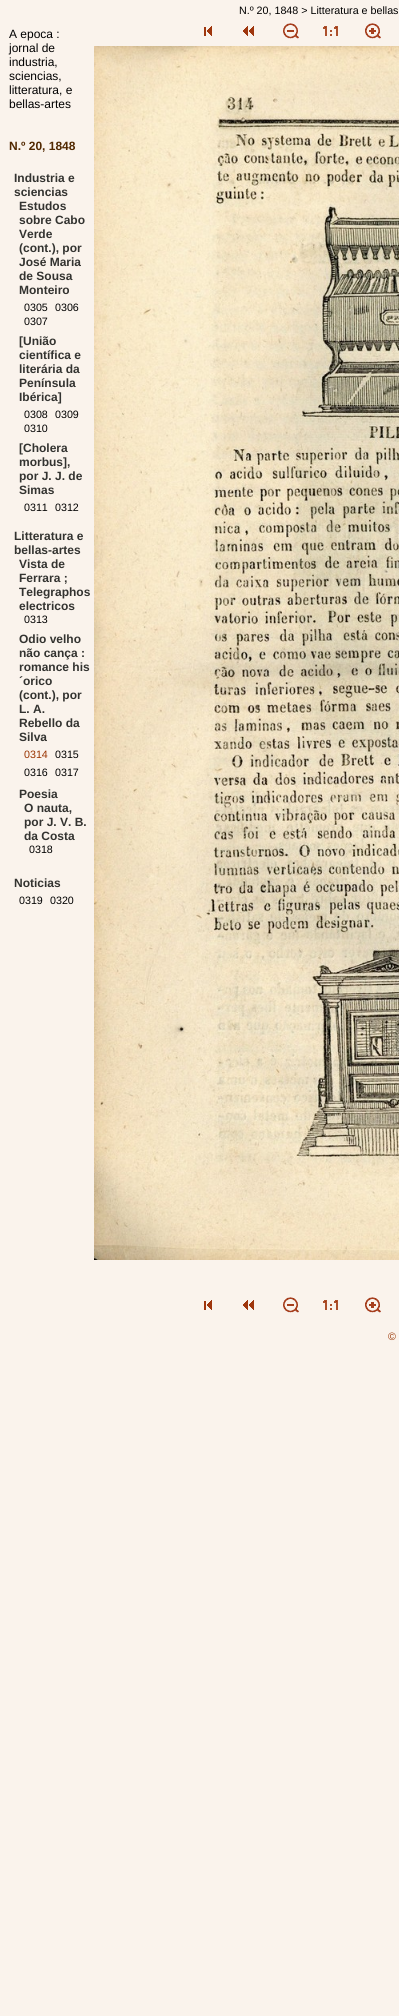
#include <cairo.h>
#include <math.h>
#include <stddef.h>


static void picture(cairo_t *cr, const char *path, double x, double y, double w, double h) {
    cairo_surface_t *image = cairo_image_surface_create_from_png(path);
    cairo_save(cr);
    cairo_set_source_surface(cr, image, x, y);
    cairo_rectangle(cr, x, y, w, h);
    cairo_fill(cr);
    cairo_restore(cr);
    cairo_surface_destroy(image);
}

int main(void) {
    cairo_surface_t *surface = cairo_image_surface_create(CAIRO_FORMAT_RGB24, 399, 2016);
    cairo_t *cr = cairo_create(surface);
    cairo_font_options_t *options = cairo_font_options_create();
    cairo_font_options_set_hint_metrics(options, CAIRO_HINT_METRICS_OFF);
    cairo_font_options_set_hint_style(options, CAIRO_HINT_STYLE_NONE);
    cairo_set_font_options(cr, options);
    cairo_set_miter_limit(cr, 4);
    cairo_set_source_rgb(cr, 0.98, 0.953, 0.922);
    cairo_paint(cr);
    cairo_select_font_face(cr, "Liberation Sans", CAIRO_FONT_SLANT_NORMAL, CAIRO_FONT_WEIGHT_NORMAL);
    cairo_set_font_size(cr, 12);
    cairo_set_source_rgb(cr, 0, 0, 0);
    cairo_move_to(cr, 9, 38);
    cairo_show_text(cr, "A epoca :");
    cairo_move_to(cr, 9, 52);
    cairo_show_text(cr, "jornal de");
    cairo_move_to(cr, 9, 66);
    cairo_show_text(cr, "industria,");
    cairo_move_to(cr, 9, 80);
    cairo_show_text(cr, "sciencias,");
    cairo_move_to(cr, 9, 94);
    cairo_show_text(cr, "litteratura, e");
    cairo_move_to(cr, 9, 108);
    cairo_show_text(cr, "bellas-artes");
    cairo_select_font_face(cr, "Liberation Sans", CAIRO_FONT_SLANT_NORMAL, CAIRO_FONT_WEIGHT_BOLD);
    cairo_set_source_rgb(cr, 0.318, 0.157, 0);
    cairo_move_to(cr, 9, 150);
    cairo_show_text(cr, "N.º 20, 1848");
    cairo_set_source_rgb(cr, 0.2, 0.2, 0.188);
    cairo_move_to(cr, 14, 182);
    cairo_show_text(cr, "Industria e");
    cairo_move_to(cr, 14, 196);
    cairo_show_text(cr, "sciencias");
    cairo_move_to(cr, 19, 210);
    cairo_show_text(cr, "Estudos");
    cairo_move_to(cr, 19, 224);
    cairo_show_text(cr, "sobre Cabo");
    cairo_move_to(cr, 19, 238);
    cairo_show_text(cr, "Verde");
    cairo_move_to(cr, 19, 252);
    cairo_show_text(cr, "(cont.), por");
    cairo_move_to(cr, 19, 266);
    cairo_show_text(cr, "José Maria");
    cairo_move_to(cr, 19, 280);
    cairo_show_text(cr, "de Sousa");
    cairo_move_to(cr, 19, 294);
    cairo_show_text(cr, "Monteiro");
    cairo_select_font_face(cr, "Liberation Sans", CAIRO_FONT_SLANT_NORMAL, CAIRO_FONT_WEIGHT_NORMAL);
    cairo_set_font_size(cr, 10.7);
    cairo_set_source_rgb(cr, 0, 0, 0);
    cairo_move_to(cr, 24, 311);
    cairo_show_text(cr, "0305");
    cairo_move_to(cr, 55, 311);
    cairo_show_text(cr, "0306");
    cairo_move_to(cr, 24, 325);
    cairo_show_text(cr, "0307");
    cairo_select_font_face(cr, "Liberation Sans", CAIRO_FONT_SLANT_NORMAL, CAIRO_FONT_WEIGHT_BOLD);
    cairo_set_font_size(cr, 12);
    cairo_set_source_rgb(cr, 0.2, 0.2, 0.188);
    cairo_move_to(cr, 19, 345);
    cairo_show_text(cr, "[União");
    cairo_move_to(cr, 19, 359);
    cairo_show_text(cr, "científica e");
    cairo_move_to(cr, 19, 373);
    cairo_show_text(cr, "literária da");
    cairo_move_to(cr, 19, 387);
    cairo_show_text(cr, "Península");
    cairo_move_to(cr, 19, 401);
    cairo_show_text(cr, "Ibérica]");
    cairo_select_font_face(cr, "Liberation Sans", CAIRO_FONT_SLANT_NORMAL, CAIRO_FONT_WEIGHT_NORMAL);
    cairo_set_font_size(cr, 10.7);
    cairo_set_source_rgb(cr, 0, 0, 0);
    cairo_move_to(cr, 24, 418);
    cairo_show_text(cr, "0308");
    cairo_move_to(cr, 55, 418);
    cairo_show_text(cr, "0309");
    cairo_move_to(cr, 24, 432);
    cairo_show_text(cr, "0310");
    cairo_select_font_face(cr, "Liberation Sans", CAIRO_FONT_SLANT_NORMAL, CAIRO_FONT_WEIGHT_BOLD);
    cairo_set_font_size(cr, 12);
    cairo_set_source_rgb(cr, 0.2, 0.2, 0.188);
    cairo_move_to(cr, 19, 452);
    cairo_show_text(cr, "[Cholera");
    cairo_move_to(cr, 19, 466);
    cairo_show_text(cr, "morbus],");
    cairo_move_to(cr, 19, 480);
    cairo_show_text(cr, "por J. J. de");
    cairo_move_to(cr, 19, 494);
    cairo_show_text(cr, "Simas");
    cairo_select_font_face(cr, "Liberation Sans", CAIRO_FONT_SLANT_NORMAL, CAIRO_FONT_WEIGHT_NORMAL);
    cairo_set_font_size(cr, 10.7);
    cairo_set_source_rgb(cr, 0, 0, 0);
    cairo_move_to(cr, 24, 511);
    cairo_show_text(cr, "0311");
    cairo_move_to(cr, 55, 511);
    cairo_show_text(cr, "0312");
    cairo_select_font_face(cr, "Liberation Sans", CAIRO_FONT_SLANT_NORMAL, CAIRO_FONT_WEIGHT_BOLD);
    cairo_set_font_size(cr, 12);
    cairo_set_source_rgb(cr, 0.2, 0.2, 0.188);
    cairo_move_to(cr, 14, 540);
    cairo_show_text(cr, "Litteratura e");
    cairo_move_to(cr, 14, 554);
    cairo_show_text(cr, "bellas-artes");
    cairo_move_to(cr, 19, 568);
    cairo_show_text(cr, "Vista de");
    cairo_move_to(cr, 19, 582);
    cairo_show_text(cr, "Ferrara ;");
    cairo_move_to(cr, 19, 596);
    cairo_show_text(cr, "Telegraphos");
    cairo_move_to(cr, 19, 610);
    cairo_show_text(cr, "electricos");
    cairo_select_font_face(cr, "Liberation Sans", CAIRO_FONT_SLANT_NORMAL, CAIRO_FONT_WEIGHT_NORMAL);
    cairo_set_font_size(cr, 10.7);
    cairo_set_source_rgb(cr, 0, 0, 0);
    cairo_move_to(cr, 24, 623);
    cairo_show_text(cr, "0313");
    cairo_select_font_face(cr, "Liberation Sans", CAIRO_FONT_SLANT_NORMAL, CAIRO_FONT_WEIGHT_BOLD);
    cairo_set_font_size(cr, 12);
    cairo_set_source_rgb(cr, 0.2, 0.2, 0.188);
    cairo_move_to(cr, 19, 643);
    cairo_show_text(cr, "Odio velho");
    cairo_move_to(cr, 19, 657);
    cairo_show_text(cr, "não cança :");
    cairo_move_to(cr, 19, 671);
    cairo_show_text(cr, "romance his");
    cairo_move_to(cr, 19, 685);
    cairo_show_text(cr, "´orico");
    cairo_move_to(cr, 19, 699);
    cairo_show_text(cr, "(cont.), por");
    cairo_move_to(cr, 19, 713);
    cairo_show_text(cr, "L. A.");
    cairo_move_to(cr, 19, 727);
    cairo_show_text(cr, "Rebello da");
    cairo_move_to(cr, 19, 741);
    cairo_show_text(cr, "Silva");
    cairo_select_font_face(cr, "Liberation Sans", CAIRO_FONT_SLANT_NORMAL, CAIRO_FONT_WEIGHT_NORMAL);
    cairo_set_font_size(cr, 10.7);
    cairo_set_source_rgb(cr, 0.6, 0.2, 0);
    cairo_move_to(cr, 24, 758);
    cairo_show_text(cr, "0314");
    cairo_set_source_rgb(cr, 0, 0, 0);
    cairo_move_to(cr, 55, 758);
    cairo_show_text(cr, "0315");
    cairo_move_to(cr, 24, 776);
    cairo_show_text(cr, "0316");
    cairo_move_to(cr, 55, 776);
    cairo_show_text(cr, "0317");
    cairo_select_font_face(cr, "Liberation Sans", CAIRO_FONT_SLANT_NORMAL, CAIRO_FONT_WEIGHT_BOLD);
    cairo_set_font_size(cr, 12);
    cairo_set_source_rgb(cr, 0.2, 0.2, 0.188);
    cairo_move_to(cr, 19, 798);
    cairo_show_text(cr, "Poesia");
    cairo_move_to(cr, 24, 812);
    cairo_show_text(cr, "O nauta,");
    cairo_move_to(cr, 24, 826);
    cairo_show_text(cr, "por J. V. B.");
    cairo_move_to(cr, 24, 840);
    cairo_show_text(cr, "da Costa");
    cairo_select_font_face(cr, "Liberation Sans", CAIRO_FONT_SLANT_NORMAL, CAIRO_FONT_WEIGHT_NORMAL);
    cairo_set_font_size(cr, 10.7);
    cairo_set_source_rgb(cr, 0, 0, 0);
    cairo_move_to(cr, 29, 853);
    cairo_show_text(cr, "0318");
    cairo_select_font_face(cr, "Liberation Sans", CAIRO_FONT_SLANT_NORMAL, CAIRO_FONT_WEIGHT_BOLD);
    cairo_set_font_size(cr, 12);
    cairo_set_source_rgb(cr, 0.2, 0.2, 0.188);
    cairo_move_to(cr, 14, 887);
    cairo_show_text(cr, "Noticias");
    cairo_select_font_face(cr, "Liberation Sans", CAIRO_FONT_SLANT_NORMAL, CAIRO_FONT_WEIGHT_NORMAL);
    cairo_set_font_size(cr, 10.7);
    cairo_set_source_rgb(cr, 0, 0, 0);
    cairo_move_to(cr, 19, 904);
    cairo_show_text(cr, "0319");
    cairo_move_to(cr, 50, 904);
    cairo_show_text(cr, "0320");
    cairo_move_to(cr, 239, 14);
    cairo_show_text(cr, "N.º 20, 1848 > Litteratura e bellas");
    picture(cr, "img1.png", 204, 26, 8, 10);
    picture(cr, "img2.png", 243, 26, 11, 10);
    picture(cr, "img3.png", 283, 23, 16, 16);
    picture(cr, "img4.png", 323, 26, 15, 10);
    picture(cr, "img5.png", 365, 23, 16, 16);
    picture(cr, "img6.png", 94, 46, 305, 1214);
    picture(cr, "img1.png", 204, 1300, 8, 10);
    picture(cr, "img2.png", 243, 1300, 11, 10);
    picture(cr, "img3.png", 283, 1297, 16, 16);
    picture(cr, "img4.png", 323, 1300, 15, 10);
    picture(cr, "img5.png", 365, 1297, 16, 16);
    cairo_set_source_rgb(cr, 0.6, 0.2, 0);
    cairo_move_to(cr, 388, 1340);
    cairo_show_text(cr, "©");
    cairo_surface_write_to_png(surface, "page.png");
    cairo_font_options_destroy(options);
    cairo_destroy(cr);
    cairo_surface_destroy(surface);
    return 0;
}
